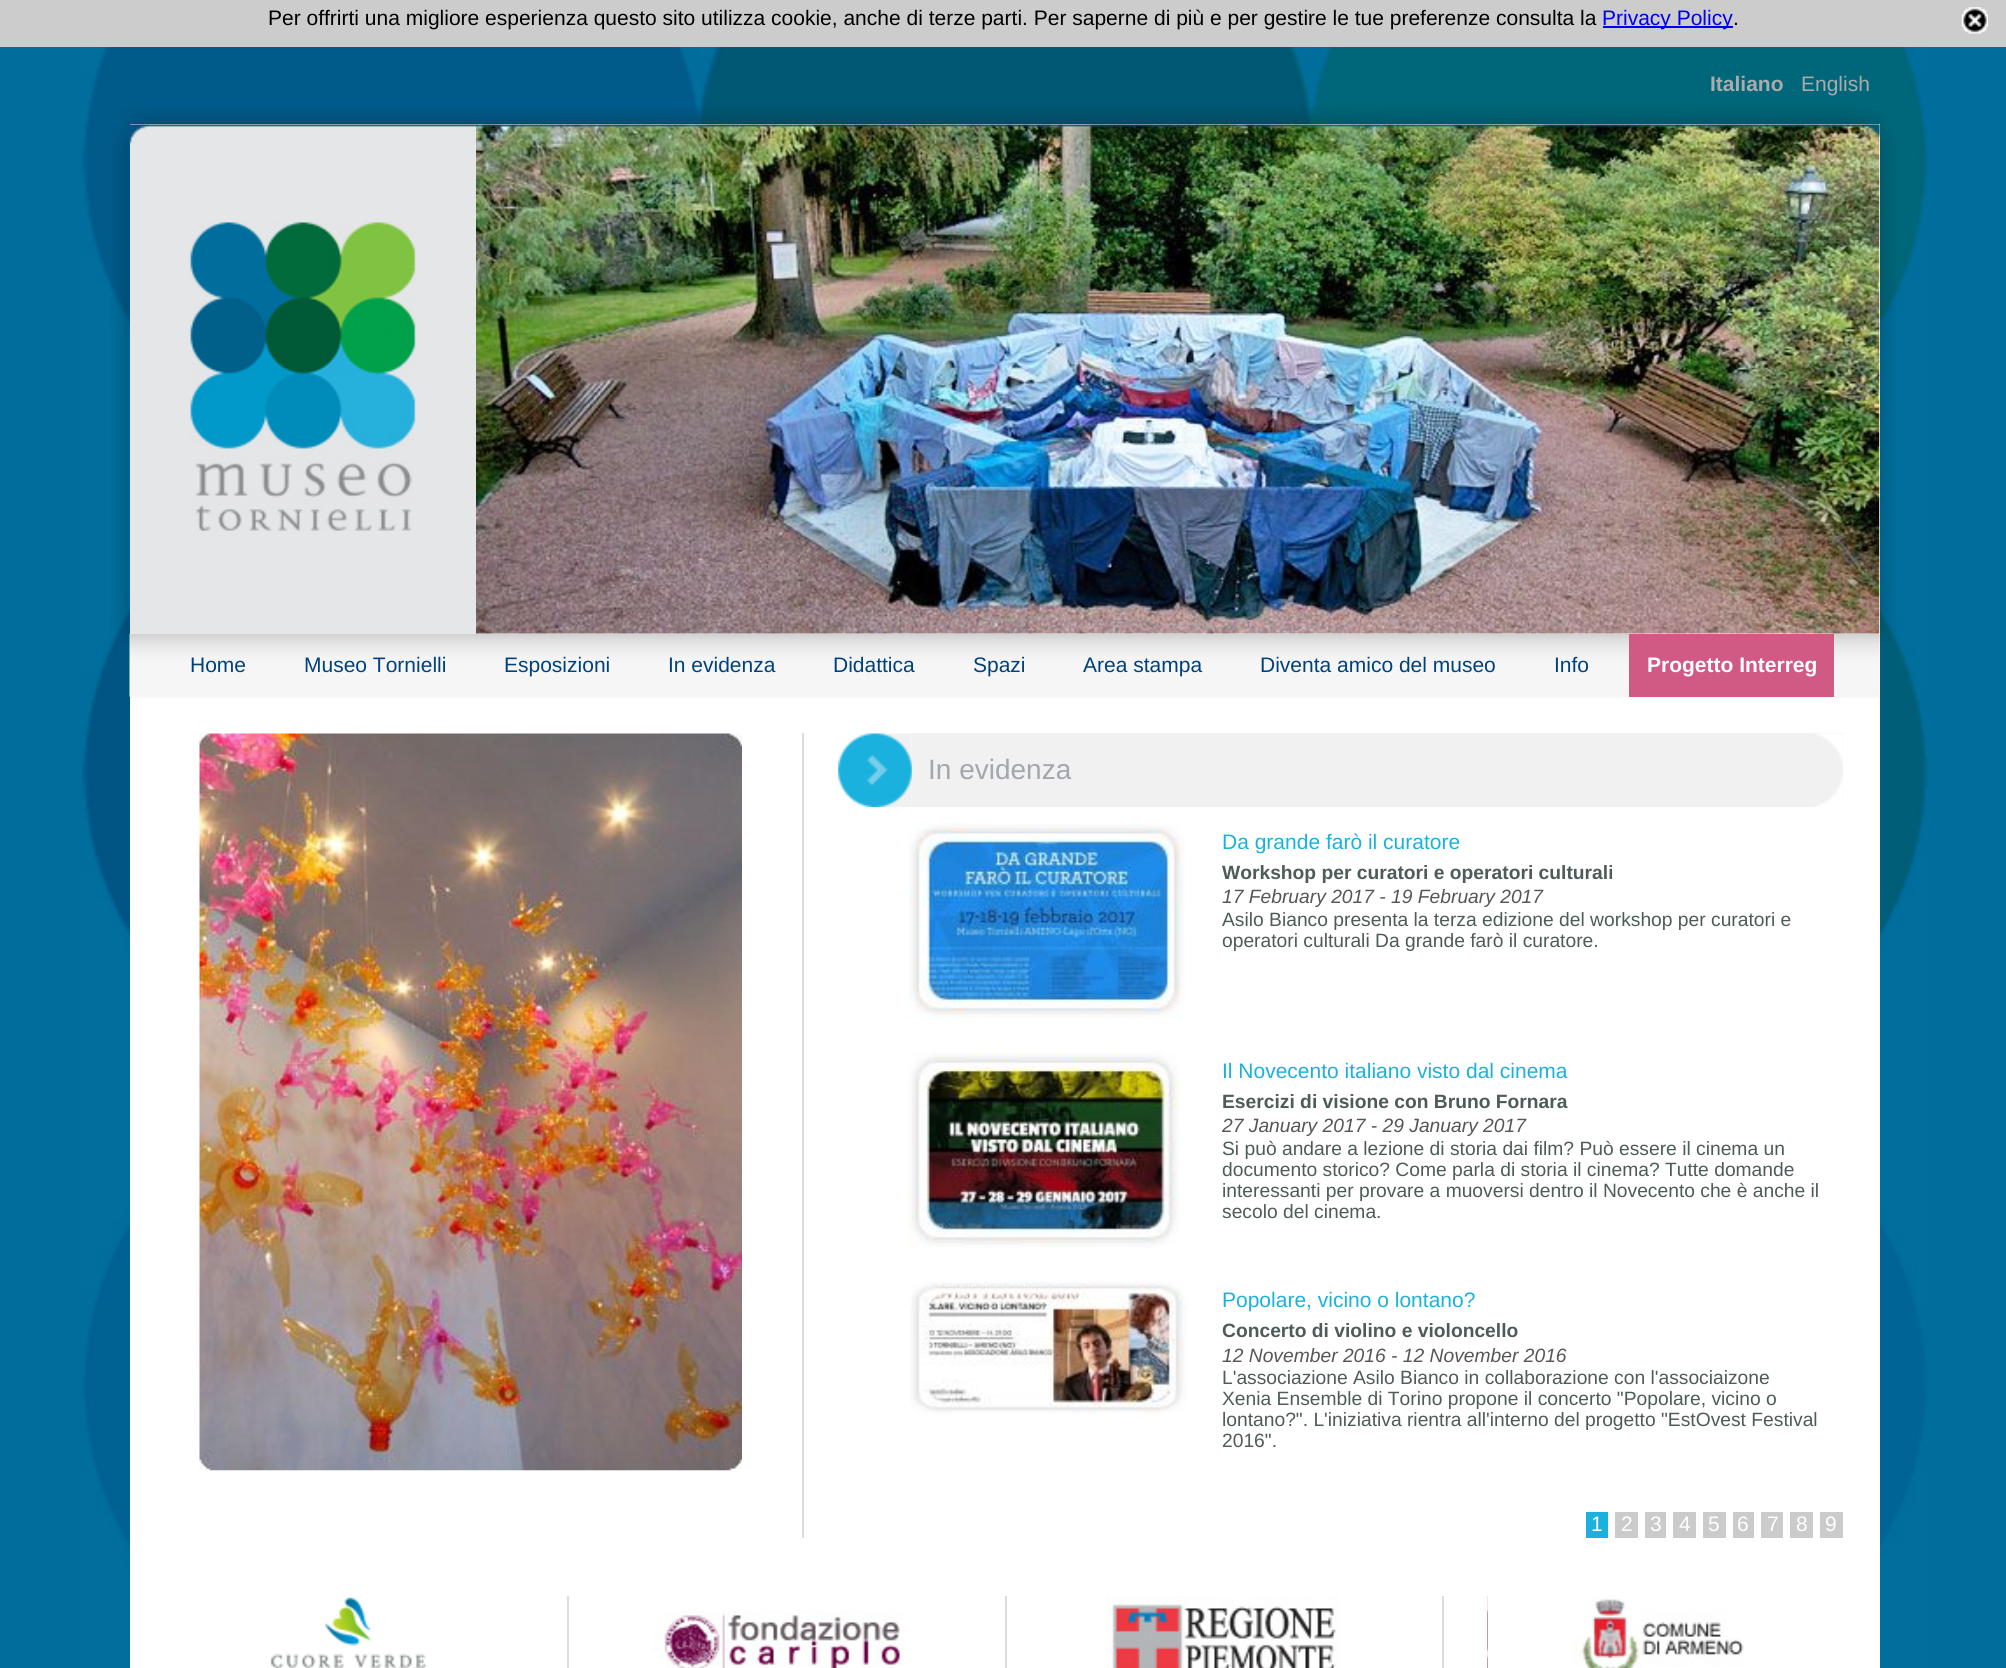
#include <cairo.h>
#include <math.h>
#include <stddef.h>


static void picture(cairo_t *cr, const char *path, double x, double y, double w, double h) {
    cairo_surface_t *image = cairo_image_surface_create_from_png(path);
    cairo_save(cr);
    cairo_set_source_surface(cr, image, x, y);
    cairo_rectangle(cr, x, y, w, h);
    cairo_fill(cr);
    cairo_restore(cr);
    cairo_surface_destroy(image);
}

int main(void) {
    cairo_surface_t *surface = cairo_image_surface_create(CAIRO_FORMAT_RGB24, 2006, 1668);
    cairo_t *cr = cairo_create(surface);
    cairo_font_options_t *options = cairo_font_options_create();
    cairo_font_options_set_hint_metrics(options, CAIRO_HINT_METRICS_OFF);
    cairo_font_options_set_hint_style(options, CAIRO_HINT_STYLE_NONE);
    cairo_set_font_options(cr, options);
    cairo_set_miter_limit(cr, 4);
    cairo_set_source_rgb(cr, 0, 0.431, 0.616);
    cairo_paint(cr);
    picture(cr, "img1.png", 82, 47, 1847, 1621);
    cairo_set_source_rgb(cr, 0.8, 0.8, 0.8);
    cairo_rectangle(cr, 0, 0, 2006, 47);
    cairo_fill(cr);
    cairo_select_font_face(cr, "Liberation Sans", CAIRO_FONT_SLANT_NORMAL, CAIRO_FONT_WEIGHT_NORMAL);
    cairo_set_font_size(cr, 21);
    cairo_set_source_rgb(cr, 0, 0, 0);
    cairo_move_to(cr, 268, 25);
    cairo_show_text(cr, "Per offrirti una migliore esperienza questo sito utilizza cookie, anche di terze parti. Per saperne di più e per gestire le tue preferenze consulta la");
    cairo_set_source_rgb(cr, 0, 0, 0.933);
    cairo_rectangle(cr, 1603, 26, 130, 2);
    cairo_fill(cr);
    cairo_move_to(cr, 1602, 25);
    cairo_show_text(cr, "Privacy Policy");
    cairo_set_source_rgb(cr, 0, 0, 0);
    cairo_move_to(cr, 1733, 25);
    cairo_show_text(cr, ".");
    picture(cr, "img2.png", 1961, 7, 27, 27);
    cairo_select_font_face(cr, "Liberation Sans", CAIRO_FONT_SLANT_NORMAL, CAIRO_FONT_WEIGHT_BOLD);
    cairo_set_source_rgb(cr, 0.671, 0.671, 0.671);
    cairo_move_to(cr, 1710, 91);
    cairo_show_text(cr, "Italiano");
    cairo_select_font_face(cr, "Liberation Sans", CAIRO_FONT_SLANT_NORMAL, CAIRO_FONT_WEIGHT_NORMAL);
    cairo_move_to(cr, 1801, 91);
    cairo_show_text(cr, "English");
    picture(cr, "img6.png", 111, 125, 19, 519);
    cairo_set_source_rgb(cr, 1, 1, 1);
    cairo_rectangle(cr, 130, 634, 1750, 63);
    cairo_fill(cr);
    picture(cr, "img11.png", 129, 633, 1751, 64);
    cairo_set_source_rgb(cr, 0.898, 0.902, 0.906);
    cairo_rectangle(cr, 130, 124, 346, 510);
    cairo_fill(cr);
    picture(cr, "img3.png", 120, 108, 36, 17);
    picture(cr, "img4.png", 155, 106, 1699, 19);
    picture(cr, "img5.png", 1853, 109, 34, 15);
    picture(cr, "img7.png", 1879, 125, 17, 517);
    cairo_set_source_rgb(cr, 1, 1, 1);
    cairo_rectangle(cr, 476, 124, 1404, 510);
    cairo_fill(cr);
    picture(cr, "img10.png", 476, 124, 1404, 510);
    picture(cr, "img8.png", 129, 124, 1751, 20);
    picture(cr, "img9.png", 189, 221, 227, 310);
    cairo_set_source_rgb(cr, 0.98, 0.98, 0.984);
    cairo_rectangle(cr, 130, 697, 1750, 1);
    cairo_fill(cr);
    cairo_set_source_rgb(cr, 0, 0.255, 0.482);
    cairo_move_to(cr, 190, 672);
    cairo_show_text(cr, "Home");
    cairo_move_to(cr, 304, 672);
    cairo_show_text(cr, "Museo Tornielli");
    cairo_move_to(cr, 504, 672);
    cairo_show_text(cr, "Esposizioni");
    cairo_move_to(cr, 668, 672);
    cairo_show_text(cr, "In evidenza");
    cairo_move_to(cr, 833, 672);
    cairo_show_text(cr, "Didattica");
    cairo_move_to(cr, 973, 672);
    cairo_show_text(cr, "Spazi");
    cairo_move_to(cr, 1083, 672);
    cairo_show_text(cr, "Area stampa");
    cairo_move_to(cr, 1260, 672);
    cairo_show_text(cr, "Diventa amico del museo");
    cairo_move_to(cr, 1554, 672);
    cairo_show_text(cr, "Info");
    cairo_set_source_rgb(cr, 0.82, 0.353, 0.522);
    cairo_rectangle(cr, 1629, 634, 205, 63);
    cairo_fill(cr);
    cairo_select_font_face(cr, "Liberation Sans", CAIRO_FONT_SLANT_NORMAL, CAIRO_FONT_WEIGHT_BOLD);
    cairo_set_source_rgb(cr, 1, 1, 1);
    cairo_move_to(cr, 1647, 672);
    cairo_show_text(cr, "Progetto Interreg");
    cairo_rectangle(cr, 130, 698, 1750, 970);
    cairo_fill(cr);
    picture(cr, "img12.png", 199, 733, 543, 738);
    cairo_set_source_rgb(cr, 0.863, 0.863, 0.867);
    cairo_rectangle(cr, 802, 733, 2, 805);
    cairo_fill(cr);
    picture(cr, "img13.png", 838, 733, 74, 74);
    cairo_set_source_rgb(cr, 0.945, 0.945, 0.945);
    cairo_rectangle(cr, 912, 733, 931, 74);
    cairo_fill(cr);
    picture(cr, "img14.png", 1815, 733, 28, 74);
    cairo_select_font_face(cr, "Liberation Sans", CAIRO_FONT_SLANT_NORMAL, CAIRO_FONT_WEIGHT_NORMAL);
    cairo_set_font_size(cr, 28);
    cairo_set_source_rgb(cr, 0.639, 0.655, 0.675);
    cairo_move_to(cr, 928, 779);
    cairo_show_text(cr, "In evidenza");
    picture(cr, "img15.png", 908, 823, 277, 196);
    cairo_set_font_size(cr, 21);
    cairo_set_source_rgb(cr, 0.106, 0.694, 0.867);
    cairo_move_to(cr, 1222, 849);
    cairo_show_text(cr, "Da grande farò il curatore");
    cairo_select_font_face(cr, "Liberation Sans", CAIRO_FONT_SLANT_NORMAL, CAIRO_FONT_WEIGHT_BOLD);
    cairo_set_font_size(cr, 19.25);
    cairo_set_source_rgb(cr, 0.302, 0.357, 0.349);
    cairo_move_to(cr, 1222, 879);
    cairo_show_text(cr, "Workshop per curatori e operatori culturali");
    cairo_select_font_face(cr, "Liberation Sans", CAIRO_FONT_SLANT_ITALIC, CAIRO_FONT_WEIGHT_NORMAL);
    cairo_set_source_rgb(cr, 0.329, 0.337, 0.341);
    cairo_move_to(cr, 1222, 903);
    cairo_show_text(cr, "17 February 2017 - 19 February 2017");
    cairo_select_font_face(cr, "Liberation Sans", CAIRO_FONT_SLANT_NORMAL, CAIRO_FONT_WEIGHT_NORMAL);
    cairo_set_source_rgb(cr, 0.302, 0.357, 0.349);
    cairo_move_to(cr, 1222, 926);
    cairo_show_text(cr, "Asilo Bianco presenta la terza edizione del workshop per curatori e");
    cairo_move_to(cr, 1222, 947);
    cairo_show_text(cr, "operatori culturali Da grande farò il curatore.");
    picture(cr, "img16.png", 908, 1052, 272, 196);
    cairo_set_font_size(cr, 21);
    cairo_set_source_rgb(cr, 0.106, 0.694, 0.867);
    cairo_move_to(cr, 1222, 1078);
    cairo_show_text(cr, "Il Novecento italiano visto dal cinema");
    cairo_select_font_face(cr, "Liberation Sans", CAIRO_FONT_SLANT_NORMAL, CAIRO_FONT_WEIGHT_BOLD);
    cairo_set_font_size(cr, 19.25);
    cairo_set_source_rgb(cr, 0.302, 0.357, 0.349);
    cairo_move_to(cr, 1222, 1108);
    cairo_show_text(cr, "Esercizi di visione con Bruno Fornara");
    cairo_select_font_face(cr, "Liberation Sans", CAIRO_FONT_SLANT_ITALIC, CAIRO_FONT_WEIGHT_NORMAL);
    cairo_set_source_rgb(cr, 0.329, 0.337, 0.341);
    cairo_move_to(cr, 1222, 1132);
    cairo_show_text(cr, "27 January 2017 - 29 January 2017");
    cairo_select_font_face(cr, "Liberation Sans", CAIRO_FONT_SLANT_NORMAL, CAIRO_FONT_WEIGHT_NORMAL);
    cairo_set_source_rgb(cr, 0.302, 0.357, 0.349);
    cairo_move_to(cr, 1222, 1155);
    cairo_show_text(cr, "Si può andare a lezione di storia dai film? Può essere il cinema un");
    cairo_move_to(cr, 1222, 1176);
    cairo_show_text(cr, "documento storico? Come parla di storia il cinema? Tutte domande");
    cairo_move_to(cr, 1222, 1197);
    cairo_show_text(cr, "interessanti per provare a muoversi dentro il Novecento che è anche il");
    cairo_move_to(cr, 1222, 1218);
    cairo_show_text(cr, "secolo del cinema.");
    picture(cr, "img17.png", 910, 1281, 277, 133);
    cairo_set_font_size(cr, 21);
    cairo_set_source_rgb(cr, 0.106, 0.694, 0.867);
    cairo_move_to(cr, 1222, 1307);
    cairo_show_text(cr, "Popolare, vicino o lontano?");
    cairo_select_font_face(cr, "Liberation Sans", CAIRO_FONT_SLANT_NORMAL, CAIRO_FONT_WEIGHT_BOLD);
    cairo_set_font_size(cr, 19.25);
    cairo_set_source_rgb(cr, 0.302, 0.357, 0.349);
    cairo_move_to(cr, 1222, 1337);
    cairo_show_text(cr, "Concerto di violino e violoncello");
    cairo_select_font_face(cr, "Liberation Sans", CAIRO_FONT_SLANT_ITALIC, CAIRO_FONT_WEIGHT_NORMAL);
    cairo_set_source_rgb(cr, 0.329, 0.337, 0.341);
    cairo_move_to(cr, 1222, 1362);
    cairo_show_text(cr, "12 November 2016 - 12 November 2016");
    cairo_select_font_face(cr, "Liberation Sans", CAIRO_FONT_SLANT_NORMAL, CAIRO_FONT_WEIGHT_NORMAL);
    cairo_set_source_rgb(cr, 0.302, 0.357, 0.349);
    cairo_move_to(cr, 1222, 1384);
    cairo_show_text(cr, "L'associazione Asilo Bianco in collaborazione con l'associaizone");
    cairo_move_to(cr, 1222, 1405);
    cairo_show_text(cr, "Xenia Ensemble di Torino propone il concerto \"Popolare, vicino o");
    cairo_move_to(cr, 1222, 1426);
    cairo_show_text(cr, "lontano?\". L'iniziativa rientra all'interno del progetto \"EstOvest Festival");
    cairo_move_to(cr, 1222, 1447);
    cairo_show_text(cr, "2016\".");
    cairo_set_source_rgb(cr, 0.106, 0.694, 0.867);
    cairo_rectangle(cr, 1586, 1512, 22, 26);
    cairo_fill(cr);
    cairo_set_font_size(cr, 21);
    cairo_set_source_rgb(cr, 1, 1, 1);
    cairo_move_to(cr, 1591, 1531);
    cairo_show_text(cr, "1");
    cairo_set_source_rgb(cr, 0.796, 0.796, 0.796);
    cairo_rectangle(cr, 1615, 1512, 23, 26);
    cairo_fill(cr);
    cairo_set_source_rgb(cr, 1, 1, 1);
    cairo_move_to(cr, 1621, 1531);
    cairo_show_text(cr, "2");
    cairo_set_source_rgb(cr, 0.796, 0.796, 0.796);
    cairo_rectangle(cr, 1645, 1512, 21, 26);
    cairo_fill(cr);
    cairo_set_source_rgb(cr, 1, 1, 1);
    cairo_move_to(cr, 1650, 1531);
    cairo_show_text(cr, "3");
    cairo_set_source_rgb(cr, 0.796, 0.796, 0.796);
    cairo_rectangle(cr, 1673, 1512, 23, 26);
    cairo_fill(cr);
    cairo_set_source_rgb(cr, 1, 1, 1);
    cairo_move_to(cr, 1679, 1531);
    cairo_show_text(cr, "4");
    cairo_set_source_rgb(cr, 0.796, 0.796, 0.796);
    cairo_rectangle(cr, 1703, 1512, 23, 26);
    cairo_fill(cr);
    cairo_set_source_rgb(cr, 1, 1, 1);
    cairo_move_to(cr, 1708, 1531);
    cairo_show_text(cr, "5");
    cairo_set_source_rgb(cr, 0.796, 0.796, 0.796);
    cairo_rectangle(cr, 1733, 1512, 21, 26);
    cairo_fill(cr);
    cairo_set_source_rgb(cr, 1, 1, 1);
    cairo_move_to(cr, 1737, 1531);
    cairo_show_text(cr, "6");
    cairo_set_source_rgb(cr, 0.796, 0.796, 0.796);
    cairo_rectangle(cr, 1761, 1512, 22, 26);
    cairo_fill(cr);
    cairo_set_source_rgb(cr, 1, 1, 1);
    cairo_move_to(cr, 1767, 1531);
    cairo_show_text(cr, "7");
    cairo_set_source_rgb(cr, 0.796, 0.796, 0.796);
    cairo_rectangle(cr, 1790, 1512, 23, 26);
    cairo_fill(cr);
    cairo_set_source_rgb(cr, 1, 1, 1);
    cairo_move_to(cr, 1796, 1531);
    cairo_show_text(cr, "8");
    cairo_set_source_rgb(cr, 0.796, 0.796, 0.796);
    cairo_rectangle(cr, 1820, 1512, 23, 26);
    cairo_fill(cr);
    cairo_set_source_rgb(cr, 1, 1, 1);
    cairo_move_to(cr, 1825, 1531);
    cairo_show_text(cr, "9");
    picture(cr, "img18.png", 270, 1597, 156, 71);
    cairo_set_source_rgb(cr, 0.863, 0.863, 0.867);
    cairo_rectangle(cr, 567, 1596, 2, 72);
    cairo_fill(cr);
    picture(cr, "img19.png", 653, 1610, 252, 58);
    cairo_rectangle(cr, 1005, 1596, 2, 72);
    cairo_fill(cr);
    picture(cr, "img20.png", 1106, 1596, 234, 72);
    cairo_rectangle(cr, 1442, 1596, 2, 72);
    cairo_fill(cr);
    picture(cr, "img21.png", 1487, 1596, 1, 72);
    picture(cr, "img22.png", 1487, 1596, 1, 72);
    picture(cr, "img23.png", 1487, 1596, 257, 72);
    cairo_surface_write_to_png(surface, "page.png");
    cairo_font_options_destroy(options);
    cairo_destroy(cr);
    cairo_surface_destroy(surface);
    return 0;
}
